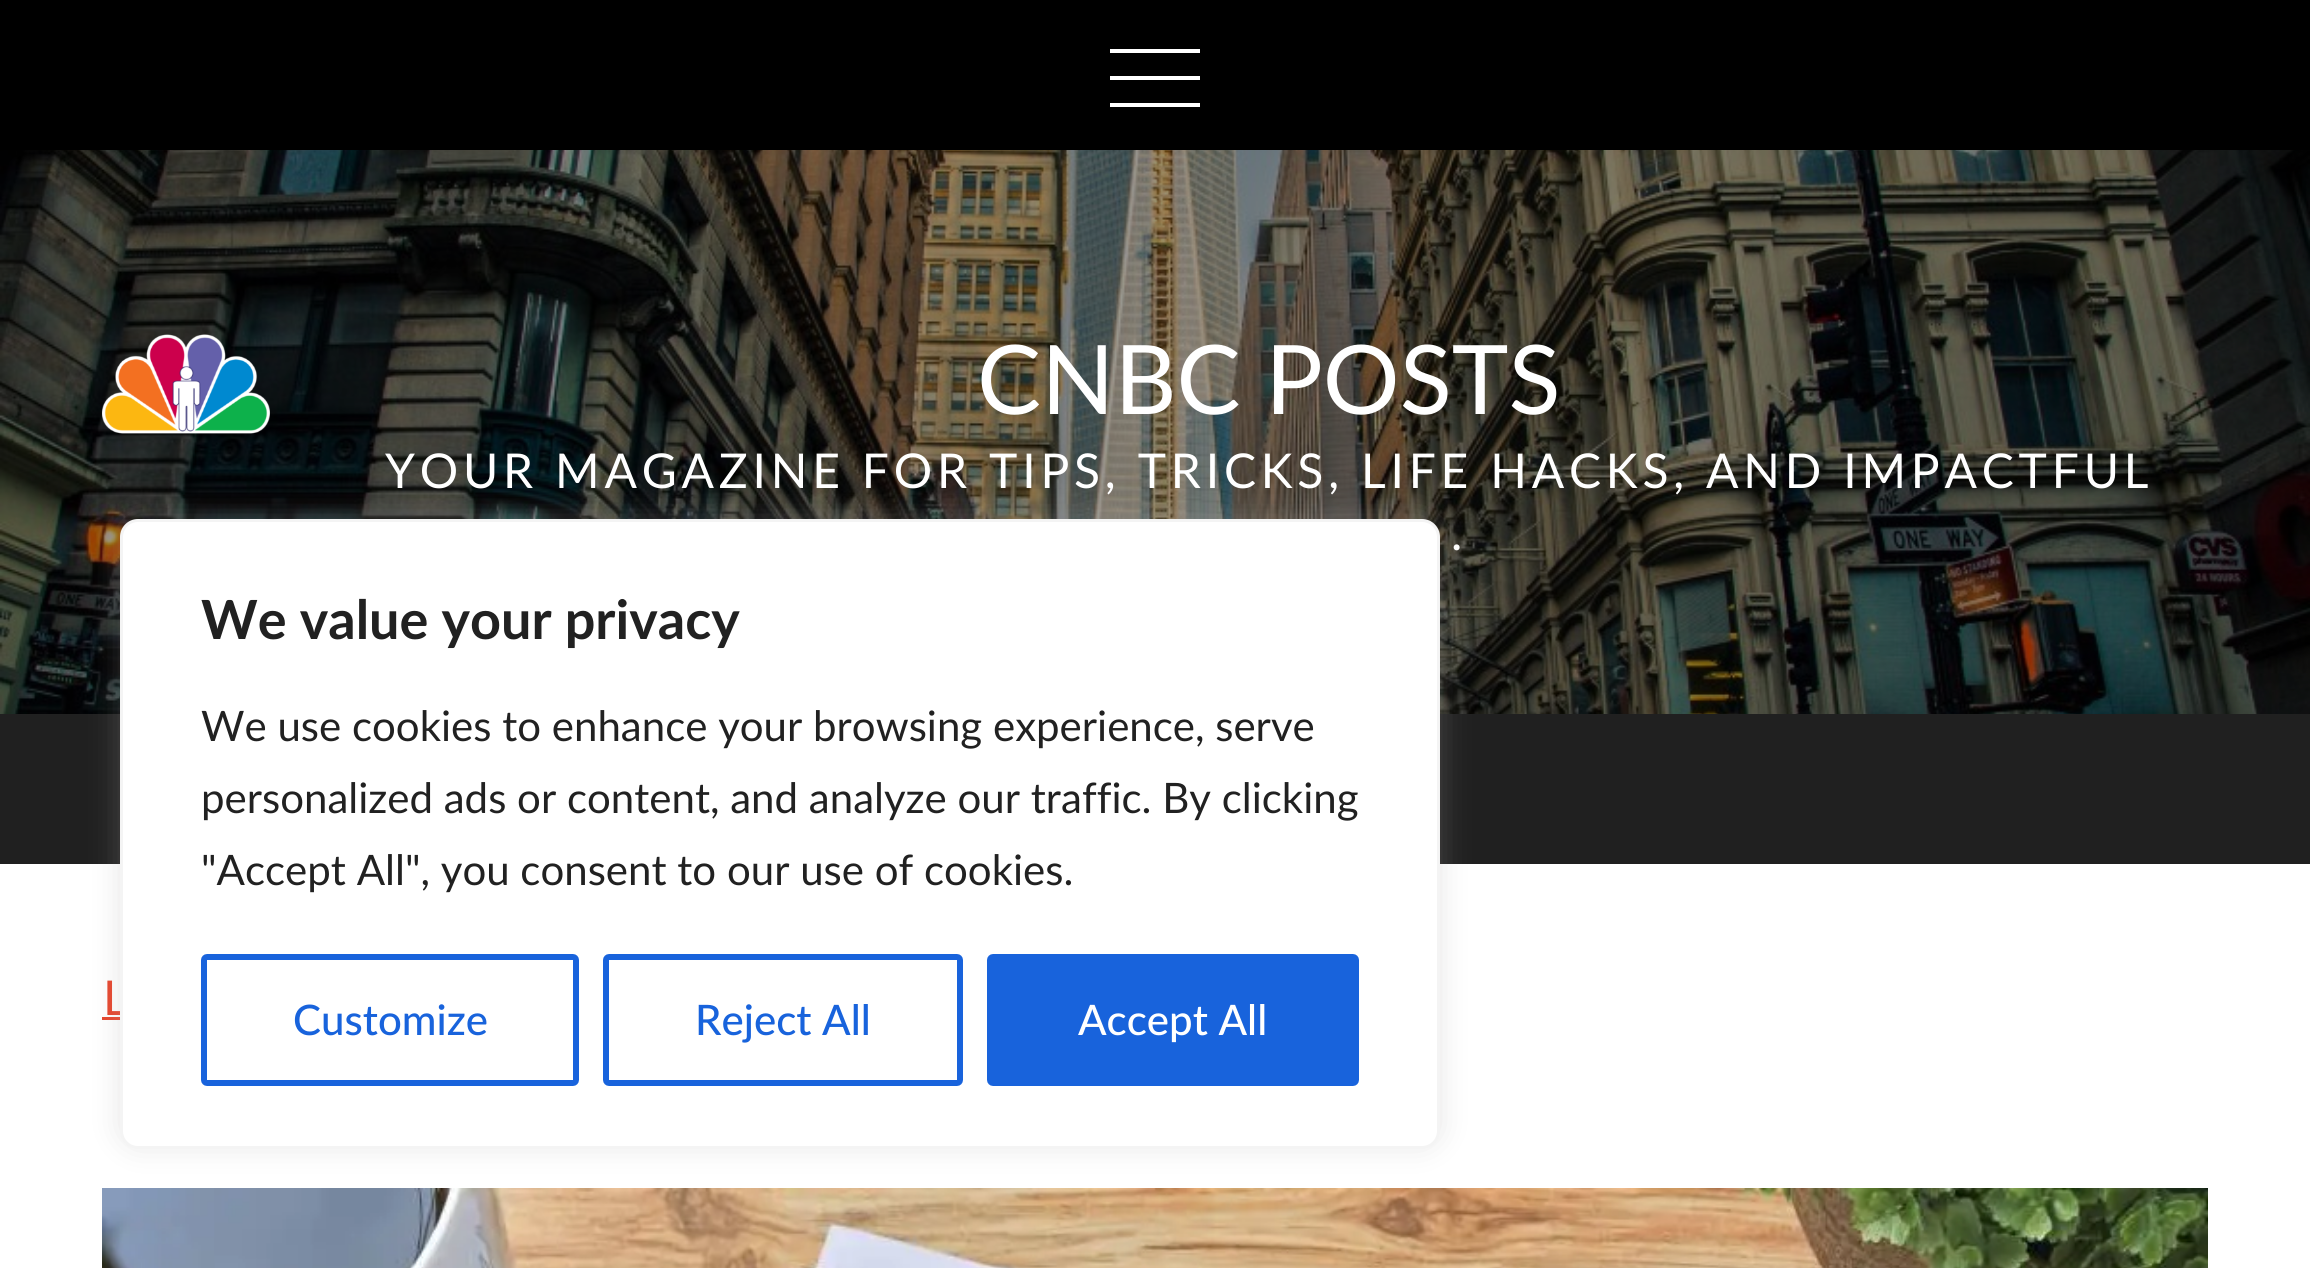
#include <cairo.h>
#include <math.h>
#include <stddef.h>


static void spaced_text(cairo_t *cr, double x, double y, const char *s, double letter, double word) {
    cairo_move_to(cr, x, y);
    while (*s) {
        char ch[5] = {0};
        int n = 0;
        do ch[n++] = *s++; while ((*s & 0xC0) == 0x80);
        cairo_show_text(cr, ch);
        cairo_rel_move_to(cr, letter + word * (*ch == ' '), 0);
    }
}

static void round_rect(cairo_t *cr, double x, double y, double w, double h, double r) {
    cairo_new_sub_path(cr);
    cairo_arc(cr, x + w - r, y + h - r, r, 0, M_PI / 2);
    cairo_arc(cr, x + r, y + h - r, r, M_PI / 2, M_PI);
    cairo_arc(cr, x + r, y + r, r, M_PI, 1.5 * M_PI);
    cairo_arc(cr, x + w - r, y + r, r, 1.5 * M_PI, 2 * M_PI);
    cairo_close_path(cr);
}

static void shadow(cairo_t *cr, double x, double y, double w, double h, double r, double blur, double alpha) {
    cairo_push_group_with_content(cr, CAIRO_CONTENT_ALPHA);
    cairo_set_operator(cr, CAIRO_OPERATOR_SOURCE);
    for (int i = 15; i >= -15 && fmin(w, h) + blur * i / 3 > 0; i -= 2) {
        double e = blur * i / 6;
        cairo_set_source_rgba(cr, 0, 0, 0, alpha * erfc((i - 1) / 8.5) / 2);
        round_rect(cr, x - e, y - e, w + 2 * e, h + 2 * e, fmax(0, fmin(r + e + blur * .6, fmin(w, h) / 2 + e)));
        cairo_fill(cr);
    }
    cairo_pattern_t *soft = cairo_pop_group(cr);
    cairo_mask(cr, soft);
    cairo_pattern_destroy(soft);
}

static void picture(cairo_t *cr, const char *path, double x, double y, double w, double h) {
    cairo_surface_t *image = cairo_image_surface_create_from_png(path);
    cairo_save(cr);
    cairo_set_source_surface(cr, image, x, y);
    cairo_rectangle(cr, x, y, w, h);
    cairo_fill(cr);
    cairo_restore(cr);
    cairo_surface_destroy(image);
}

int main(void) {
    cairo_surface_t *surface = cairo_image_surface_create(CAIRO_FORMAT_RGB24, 2310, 1268);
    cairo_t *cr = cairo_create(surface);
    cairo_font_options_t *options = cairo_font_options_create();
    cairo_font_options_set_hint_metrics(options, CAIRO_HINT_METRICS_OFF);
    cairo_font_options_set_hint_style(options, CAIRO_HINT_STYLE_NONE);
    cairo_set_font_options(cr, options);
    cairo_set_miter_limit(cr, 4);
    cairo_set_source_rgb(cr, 1, 1, 1);
    cairo_paint(cr);
    cairo_set_source_rgb(cr, 0, 0, 0);
    cairo_rectangle(cr, 0, 0, 2310, 150);
    cairo_fill(cr);
    cairo_set_source_rgb(cr, 1, 1, 1);
    cairo_rectangle(cr, 1110, 49, 90, 4);
    cairo_fill(cr);
    cairo_rectangle(cr, 1110, 76, 90, 4);
    cairo_fill(cr);
    cairo_rectangle(cr, 1110, 103, 90, 4);
    cairo_fill(cr);
    picture(cr, "img1.png", 0, 150, 2310, 564);
    picture(cr, "img2.png", 102, 334, 168, 100);
    cairo_select_font_face(cr, "Lato", CAIRO_FONT_SLANT_NORMAL, CAIRO_FONT_WEIGHT_NORMAL);
    cairo_set_font_size(cr, 96);
    cairo_move_to(cr, 977, 414);
    cairo_show_text(cr, "CNBC POSTS");
    cairo_set_font_size(cr, 48);
    spaced_text(cr, 385, 488, "YOUR MAGAZINE FOR TIPS, TRICKS, LIFE HACKS, AND IMPACTFUL", 4.8, 0);
    spaced_text(cr, 1451, 550, ".", 4.8, 0);
    cairo_set_source_rgb(cr, 0.125, 0.125, 0.125);
    cairo_rectangle(cr, 0, 714, 2310, 150);
    cairo_fill(cr);
    cairo_set_source_rgb(cr, 0.902, 0.263, 0.165);
    cairo_move_to(cr, 103, 1015);
    cairo_show_text(cr, "L");
    cairo_rectangle(cr, 102, 1017, 18, 3);
    cairo_fill(cr);
    picture(cr, "img3.png", 102, 1188, 2106, 80);
    cairo_set_source_rgb(cr, 0.675, 0.671, 0.671);
    shadow(cr, 120, 516, 1320, 630, 18, 15, 0.3);
    cairo_set_source_rgb(cr, 1, 1, 1);
    round_rect(cr, 121.5, 520.5, 1317, 627, 16.5);
    cairo_fill_preserve(cr);
    cairo_set_source_rgb(cr, 0.957, 0.957, 0.957);
    cairo_set_line_width(cr, 3);
    cairo_stroke(cr);
    cairo_select_font_face(cr, "Lato", CAIRO_FONT_SLANT_NORMAL, CAIRO_FONT_WEIGHT_BOLD);
    cairo_set_font_size(cr, 54);
    cairo_set_source_rgb(cr, 0.129, 0.129, 0.129);
    cairo_move_to(cr, 201, 639);
    cairo_show_text(cr, "We value your privacy");
    cairo_select_font_face(cr, "Lato", CAIRO_FONT_SLANT_NORMAL, CAIRO_FONT_WEIGHT_NORMAL);
    cairo_set_font_size(cr, 42);
    cairo_move_to(cr, 201, 741);
    cairo_show_text(cr, "We use cookies to enhance your browsing experience, serve");
    cairo_move_to(cr, 201, 813);
    cairo_show_text(cr, "personalized ads or content, and analyze our traffic. By clicking");
    cairo_move_to(cr, 201, 885);
    cairo_show_text(cr, "\"Accept All\", you consent to our use of cookies.");
    round_rect(cr, 204, 957, 372, 126, 3);
    cairo_set_source_rgb(cr, 0.094, 0.388, 0.863);
    cairo_set_line_width(cr, 6);
    cairo_stroke(cr);
    cairo_select_font_face(cr, "Lato Medium", CAIRO_FONT_SLANT_NORMAL, CAIRO_FONT_WEIGHT_NORMAL);
    cairo_move_to(cr, 293, 1035);
    cairo_show_text(cr, "Customize");
    round_rect(cr, 606, 957, 354, 126, 3);
    cairo_stroke(cr);
    cairo_move_to(cr, 695, 1035);
    cairo_show_text(cr, "Reject All");
    round_rect(cr, 990, 957, 366, 126, 3);
    cairo_fill_preserve(cr);
    cairo_stroke(cr);
    cairo_set_source_rgb(cr, 1, 1, 1);
    cairo_move_to(cr, 1078, 1035);
    cairo_show_text(cr, "Accept All");
    cairo_surface_write_to_png(surface, "page.png");
    cairo_font_options_destroy(options);
    cairo_destroy(cr);
    cairo_surface_destroy(surface);
    return 0;
}
